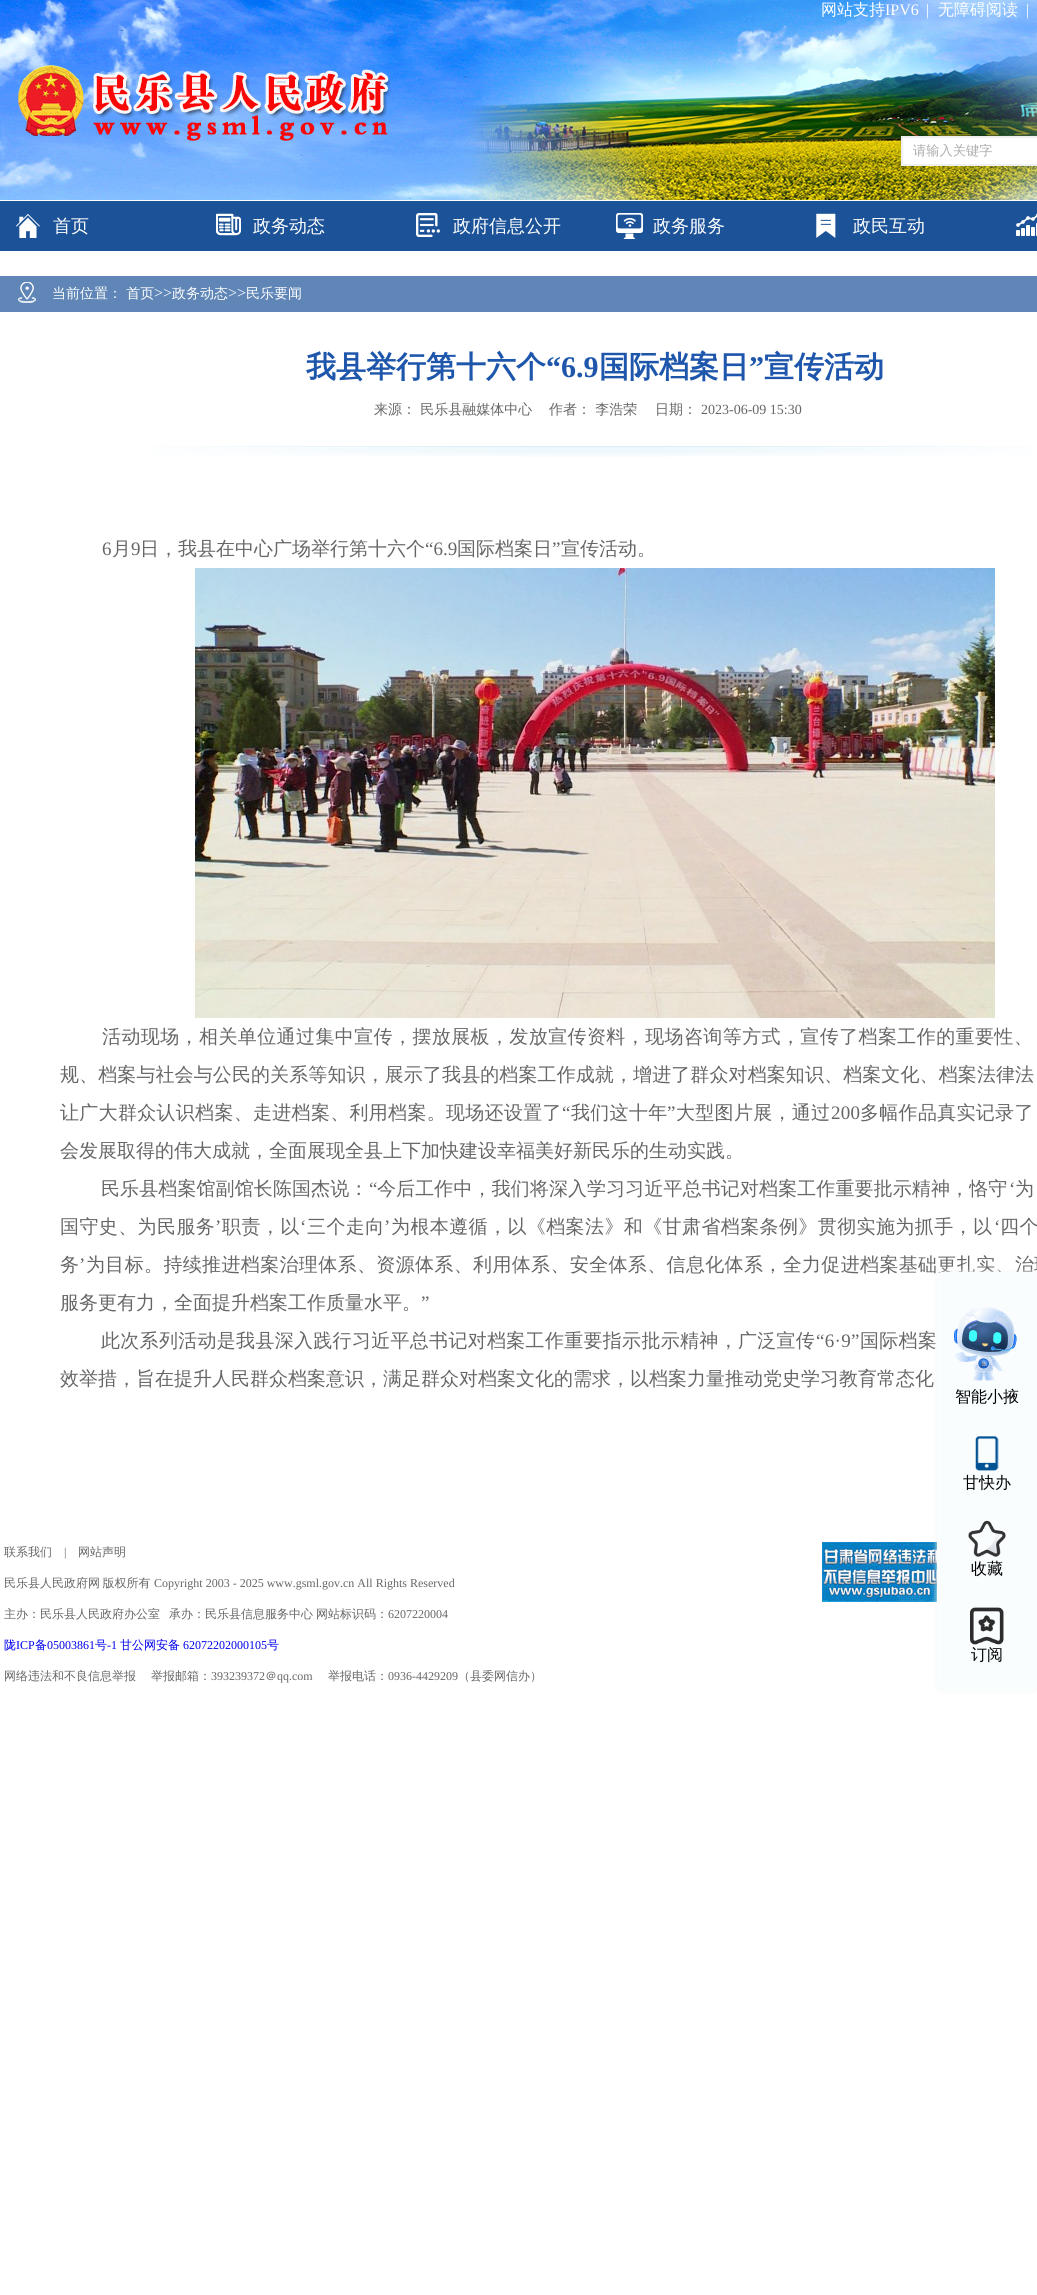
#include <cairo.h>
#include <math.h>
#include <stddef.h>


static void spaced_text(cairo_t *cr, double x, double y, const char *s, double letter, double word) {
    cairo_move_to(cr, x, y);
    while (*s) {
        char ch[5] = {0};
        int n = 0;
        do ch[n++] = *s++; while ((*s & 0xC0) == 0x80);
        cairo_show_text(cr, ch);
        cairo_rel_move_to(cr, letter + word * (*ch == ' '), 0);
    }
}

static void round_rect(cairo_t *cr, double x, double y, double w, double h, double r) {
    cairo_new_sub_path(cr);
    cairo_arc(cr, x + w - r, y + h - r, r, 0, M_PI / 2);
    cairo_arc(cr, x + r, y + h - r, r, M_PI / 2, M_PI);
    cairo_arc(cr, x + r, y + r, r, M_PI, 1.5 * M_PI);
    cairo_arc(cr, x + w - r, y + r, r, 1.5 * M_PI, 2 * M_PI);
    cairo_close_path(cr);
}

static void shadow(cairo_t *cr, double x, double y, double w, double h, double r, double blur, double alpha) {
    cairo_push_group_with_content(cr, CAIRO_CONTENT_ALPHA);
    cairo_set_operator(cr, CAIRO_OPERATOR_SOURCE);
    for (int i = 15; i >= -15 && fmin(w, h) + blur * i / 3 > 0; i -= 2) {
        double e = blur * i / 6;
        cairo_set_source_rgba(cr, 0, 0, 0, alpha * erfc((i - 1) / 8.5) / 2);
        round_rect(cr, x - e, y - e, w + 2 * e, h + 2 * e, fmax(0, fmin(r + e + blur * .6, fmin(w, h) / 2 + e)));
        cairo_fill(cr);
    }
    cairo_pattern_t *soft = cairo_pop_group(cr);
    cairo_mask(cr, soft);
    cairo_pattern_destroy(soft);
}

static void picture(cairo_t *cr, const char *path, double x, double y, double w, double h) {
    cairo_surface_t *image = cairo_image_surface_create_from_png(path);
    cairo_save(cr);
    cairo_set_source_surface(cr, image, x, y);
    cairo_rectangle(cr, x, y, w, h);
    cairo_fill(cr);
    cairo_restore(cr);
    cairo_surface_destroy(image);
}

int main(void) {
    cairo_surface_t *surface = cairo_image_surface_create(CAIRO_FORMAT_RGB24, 1037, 2295);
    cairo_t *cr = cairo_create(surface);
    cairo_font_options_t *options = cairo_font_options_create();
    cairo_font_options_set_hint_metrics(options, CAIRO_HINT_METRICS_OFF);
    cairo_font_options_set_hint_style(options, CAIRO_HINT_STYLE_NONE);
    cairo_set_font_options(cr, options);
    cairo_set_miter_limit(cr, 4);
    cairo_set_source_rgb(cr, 1, 1, 1);
    cairo_paint(cr);
    picture(cr, "img1.png", 0, 0, 1037, 200);
    cairo_select_font_face(cr, "WenQuanYi Zen Hei Medium", CAIRO_FONT_SLANT_NORMAL, CAIRO_FONT_WEIGHT_NORMAL);
    cairo_set_font_size(cr, 16);
    cairo_set_source_rgb(cr, 1, 1, 1);
    cairo_move_to(cr, 821, 15);
    cairo_show_text(cr, "网站支持");
    cairo_select_font_face(cr, "Liberation Serif", CAIRO_FONT_SLANT_NORMAL, CAIRO_FONT_WEIGHT_NORMAL);
    cairo_move_to(cr, 885, 15);
    cairo_show_text(cr, "IPV6");
    cairo_move_to(cr, 926, 15);
    cairo_show_text(cr, "|");
    cairo_select_font_face(cr, "WenQuanYi Zen Hei Medium", CAIRO_FONT_SLANT_NORMAL, CAIRO_FONT_WEIGHT_NORMAL);
    cairo_move_to(cr, 938, 15);
    cairo_show_text(cr, "无障碍阅读");
    cairo_select_font_face(cr, "Liberation Serif", CAIRO_FONT_SLANT_NORMAL, CAIRO_FONT_WEIGHT_NORMAL);
    cairo_move_to(cr, 1026, 15);
    cairo_show_text(cr, "|");
    picture(cr, "img2.png", 18, 65, 373, 76);
    cairo_rectangle(cr, 902, 137, 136, 28);
    cairo_fill_preserve(cr);
    cairo_set_source_rgb(cr, 0.937, 0.937, 0.937);
    cairo_stroke(cr);
    cairo_select_font_face(cr, "WenQuanYi Zen Hei Medium", CAIRO_FONT_SLANT_NORMAL, CAIRO_FONT_WEIGHT_NORMAL);
    cairo_set_font_size(cr, 13.25);
    cairo_set_source_rgb(cr, 0.675, 0.675, 0.675);
    cairo_move_to(cr, 913, 155);
    cairo_show_text(cr, "请输入关键字");
    cairo_set_source_rgb(cr, 0.106, 0.322, 0.596);
    cairo_rectangle(cr, 0, 201, 1037, 50);
    cairo_fill(cr);
    picture(cr, "img3.png", 16, 214, 24, 24);
    cairo_set_font_size(cr, 18);
    cairo_set_source_rgb(cr, 1, 1, 1);
    cairo_move_to(cr, 53, 232);
    cairo_show_text(cr, "首页");
    picture(cr, "img4.png", 216, 213, 25, 23);
    cairo_move_to(cr, 253, 232);
    cairo_show_text(cr, "政务动态");
    picture(cr, "img5.png", 416, 213, 24, 24);
    cairo_move_to(cr, 453, 232);
    cairo_show_text(cr, "政府信息公开");
    picture(cr, "img6.png", 616, 213, 27, 26);
    cairo_move_to(cr, 653, 232);
    cairo_show_text(cr, "政务服务");
    picture(cr, "img7.png", 816, 213, 20, 25);
    cairo_move_to(cr, 853, 232);
    cairo_show_text(cr, "政民互动");
    picture(cr, "img8.png", 1016, 213, 21, 23);
    cairo_set_source_rgb(cr, 0.373, 0.525, 0.718);
    cairo_rectangle(cr, 0, 276, 1037, 36);
    cairo_fill(cr);
    picture(cr, "img9.png", 18, 282, 18, 21);
    cairo_set_font_size(cr, 14);
    cairo_set_source_rgb(cr, 1, 1, 1);
    cairo_move_to(cr, 52, 298);
    cairo_show_text(cr, "当前位置： 首页");
    cairo_select_font_face(cr, "Liberation Serif", CAIRO_FONT_SLANT_NORMAL, CAIRO_FONT_WEIGHT_NORMAL);
    cairo_set_font_size(cr, 16);
    cairo_move_to(cr, 154, 298);
    cairo_show_text(cr, ">>");
    cairo_select_font_face(cr, "WenQuanYi Zen Hei Medium", CAIRO_FONT_SLANT_NORMAL, CAIRO_FONT_WEIGHT_NORMAL);
    cairo_set_font_size(cr, 14);
    cairo_move_to(cr, 172, 298);
    cairo_show_text(cr, "政务动态");
    cairo_select_font_face(cr, "Liberation Serif", CAIRO_FONT_SLANT_NORMAL, CAIRO_FONT_WEIGHT_NORMAL);
    cairo_set_font_size(cr, 16);
    cairo_move_to(cr, 228, 298);
    cairo_show_text(cr, ">>");
    cairo_select_font_face(cr, "WenQuanYi Zen Hei Medium", CAIRO_FONT_SLANT_NORMAL, CAIRO_FONT_WEIGHT_NORMAL);
    cairo_set_font_size(cr, 14);
    cairo_move_to(cr, 246, 298);
    cairo_show_text(cr, "民乐要闻");
    cairo_select_font_face(cr, "WenQuanYi Zen Hei", CAIRO_FONT_SLANT_NORMAL, CAIRO_FONT_WEIGHT_BOLD);
    cairo_set_font_size(cr, 30);
    cairo_set_source_rgb(cr, 0.118, 0.337, 0.675);
    cairo_move_to(cr, 306, 377);
    cairo_show_text(cr, "我县举行第十六个");
    cairo_select_font_face(cr, "Liberation Serif", CAIRO_FONT_SLANT_NORMAL, CAIRO_FONT_WEIGHT_BOLD);
    cairo_move_to(cr, 546, 377);
    cairo_show_text(cr, "“6.9");
    cairo_select_font_face(cr, "WenQuanYi Zen Hei", CAIRO_FONT_SLANT_NORMAL, CAIRO_FONT_WEIGHT_BOLD);
    cairo_move_to(cr, 599, 377);
    cairo_show_text(cr, "国际档案日");
    cairo_select_font_face(cr, "Liberation Serif", CAIRO_FONT_SLANT_NORMAL, CAIRO_FONT_WEIGHT_BOLD);
    cairo_move_to(cr, 749, 377);
    cairo_show_text(cr, "”");
    cairo_select_font_face(cr, "WenQuanYi Zen Hei", CAIRO_FONT_SLANT_NORMAL, CAIRO_FONT_WEIGHT_BOLD);
    cairo_move_to(cr, 764, 377);
    cairo_show_text(cr, "宣传活动");
    cairo_select_font_face(cr, "WenQuanYi Zen Hei Medium", CAIRO_FONT_SLANT_NORMAL, CAIRO_FONT_WEIGHT_NORMAL);
    cairo_set_font_size(cr, 14);
    cairo_set_source_rgb(cr, 0.4, 0.4, 0.4);
    cairo_move_to(cr, 374, 414);
    cairo_show_text(cr, "来源： 民乐县融媒体中心");
    cairo_move_to(cr, 549, 414);
    cairo_show_text(cr, "作者： 李浩荣");
    cairo_move_to(cr, 655, 414);
    cairo_show_text(cr, "日期：");
    cairo_select_font_face(cr, "Liberation Serif", CAIRO_FONT_SLANT_NORMAL, CAIRO_FONT_WEIGHT_NORMAL);
    cairo_move_to(cr, 701, 414);
    cairo_show_text(cr, "2023-06-09 15:30");
    picture(cr, "img10.png", 155, 446, 879, 11);
    cairo_set_font_size(cr, 19);
    cairo_move_to(cr, 102, 555);
    cairo_show_text(cr, "6");
    cairo_select_font_face(cr, "WenQuanYi Zen Hei Medium", CAIRO_FONT_SLANT_NORMAL, CAIRO_FONT_WEIGHT_NORMAL);
    cairo_move_to(cr, 112, 555);
    cairo_show_text(cr, "月");
    cairo_select_font_face(cr, "Liberation Serif", CAIRO_FONT_SLANT_NORMAL, CAIRO_FONT_WEIGHT_NORMAL);
    cairo_move_to(cr, 131, 555);
    cairo_show_text(cr, "9");
    cairo_select_font_face(cr, "WenQuanYi Zen Hei Medium", CAIRO_FONT_SLANT_NORMAL, CAIRO_FONT_WEIGHT_NORMAL);
    cairo_move_to(cr, 140, 555);
    cairo_show_text(cr, "日，我县在中心广场举行第十六个");
    cairo_select_font_face(cr, "Liberation Serif", CAIRO_FONT_SLANT_NORMAL, CAIRO_FONT_WEIGHT_NORMAL);
    cairo_move_to(cr, 425, 555);
    cairo_show_text(cr, "“6.9");
    cairo_select_font_face(cr, "WenQuanYi Zen Hei Medium", CAIRO_FONT_SLANT_NORMAL, CAIRO_FONT_WEIGHT_NORMAL);
    cairo_move_to(cr, 457, 555);
    cairo_show_text(cr, "国际档案日");
    cairo_select_font_face(cr, "Liberation Serif", CAIRO_FONT_SLANT_NORMAL, CAIRO_FONT_WEIGHT_NORMAL);
    cairo_move_to(cr, 552, 555);
    cairo_show_text(cr, "”");
    cairo_select_font_face(cr, "WenQuanYi Zen Hei Medium", CAIRO_FONT_SLANT_NORMAL, CAIRO_FONT_WEIGHT_NORMAL);
    cairo_move_to(cr, 561, 555);
    cairo_show_text(cr, "宣传活动。");
    picture(cr, "img11.png", 195, 568, 800, 450);
    spaced_text(cr, 102, 1043, "活动现场，相关单位通过集中宣传，摆放展板，发放宣传资料，现场咨询等方式，宣传了档案工作的重要性、", 0.4, 0);
    spaced_text(cr, 60, 1081, "规、档案与社会与公民的关系等知识，展示了我县的档案工作成就，增进了群众对档案知识、档案文化、档案法律法", 0.1, 0);
    spaced_text(cr, 60, 1119, "让广大群众认识档案、走进档案、利用档案。现场还设置了", 0.3, 0);
    cairo_select_font_face(cr, "Liberation Serif", CAIRO_FONT_SLANT_NORMAL, CAIRO_FONT_WEIGHT_NORMAL);
    spaced_text(cr, 562, 1119, "“", 0.3, 0);
    cairo_select_font_face(cr, "WenQuanYi Zen Hei Medium", CAIRO_FONT_SLANT_NORMAL, CAIRO_FONT_WEIGHT_NORMAL);
    spaced_text(cr, 571, 1119, "我们这十年", 0.3, 0);
    cairo_select_font_face(cr, "Liberation Serif", CAIRO_FONT_SLANT_NORMAL, CAIRO_FONT_WEIGHT_NORMAL);
    spaced_text(cr, 667, 1119, "”", 0.3, 0);
    cairo_select_font_face(cr, "WenQuanYi Zen Hei Medium", CAIRO_FONT_SLANT_NORMAL, CAIRO_FONT_WEIGHT_NORMAL);
    spaced_text(cr, 676, 1119, "大型图片展，通过", 0.3, 0);
    cairo_select_font_face(cr, "Liberation Serif", CAIRO_FONT_SLANT_NORMAL, CAIRO_FONT_WEIGHT_NORMAL);
    spaced_text(cr, 831, 1119, "200", 0.3, 0);
    cairo_select_font_face(cr, "WenQuanYi Zen Hei Medium", CAIRO_FONT_SLANT_NORMAL, CAIRO_FONT_WEIGHT_NORMAL);
    spaced_text(cr, 860, 1119, "多幅作品真实记录了", 0.3, 0);
    cairo_move_to(cr, 60, 1157);
    cairo_show_text(cr, "会发展取得的伟大成就，全面展现全县上下加快建设幸福美好新民乐的生动实践。");
    spaced_text(cr, 101, 1195, "民乐县档案馆副馆长陈国杰说：", 0.1, 0);
    cairo_select_font_face(cr, "Liberation Serif", CAIRO_FONT_SLANT_NORMAL, CAIRO_FONT_WEIGHT_NORMAL);
    spaced_text(cr, 369, 1195, "“", 0.1, 0);
    cairo_select_font_face(cr, "WenQuanYi Zen Hei Medium", CAIRO_FONT_SLANT_NORMAL, CAIRO_FONT_WEIGHT_NORMAL);
    spaced_text(cr, 377, 1195, "今后工作中，我们将深入学习习近平总书记对档案工作重要批示精神，恪守", 0.1, 0);
    cairo_select_font_face(cr, "Liberation Serif", CAIRO_FONT_SLANT_NORMAL, CAIRO_FONT_WEIGHT_NORMAL);
    spaced_text(cr, 1009, 1195, "‘", 0.1, 0);
    cairo_select_font_face(cr, "WenQuanYi Zen Hei Medium", CAIRO_FONT_SLANT_NORMAL, CAIRO_FONT_WEIGHT_NORMAL);
    spaced_text(cr, 1015, 1195, "为", 0.1, 0);
    spaced_text(cr, 60, 1233, "国守史、为民服务", 0.4, 0);
    cairo_select_font_face(cr, "Liberation Serif", CAIRO_FONT_SLANT_NORMAL, CAIRO_FONT_WEIGHT_NORMAL);
    spaced_text(cr, 215, 1233, "’", 0.4, 0);
    cairo_select_font_face(cr, "WenQuanYi Zen Hei Medium", CAIRO_FONT_SLANT_NORMAL, CAIRO_FONT_WEIGHT_NORMAL);
    spaced_text(cr, 222, 1233, "职责，以", 0.4, 0);
    cairo_select_font_face(cr, "Liberation Serif", CAIRO_FONT_SLANT_NORMAL, CAIRO_FONT_WEIGHT_NORMAL);
    spaced_text(cr, 300, 1233, "‘", 0.4, 0);
    cairo_select_font_face(cr, "WenQuanYi Zen Hei Medium", CAIRO_FONT_SLANT_NORMAL, CAIRO_FONT_WEIGHT_NORMAL);
    spaced_text(cr, 307, 1233, "三个走向", 0.4, 0);
    cairo_select_font_face(cr, "Liberation Serif", CAIRO_FONT_SLANT_NORMAL, CAIRO_FONT_WEIGHT_NORMAL);
    spaced_text(cr, 384, 1233, "’", 0.4, 0);
    cairo_select_font_face(cr, "WenQuanYi Zen Hei Medium", CAIRO_FONT_SLANT_NORMAL, CAIRO_FONT_WEIGHT_NORMAL);
    spaced_text(cr, 391, 1233, "为根本遵循，以《档案法》和《甘肃省档案条例》贯彻实施为抓手，以", 0.4, 0);
    cairo_select_font_face(cr, "Liberation Serif", CAIRO_FONT_SLANT_NORMAL, CAIRO_FONT_WEIGHT_NORMAL);
    spaced_text(cr, 994, 1233, "‘", 0.4, 0);
    cairo_select_font_face(cr, "WenQuanYi Zen Hei Medium", CAIRO_FONT_SLANT_NORMAL, CAIRO_FONT_WEIGHT_NORMAL);
    spaced_text(cr, 1000, 1233, "四个", 0.4, 0);
    spaced_text(cr, 60, 1271, "务", 0.35, 0);
    cairo_select_font_face(cr, "Liberation Serif", CAIRO_FONT_SLANT_NORMAL, CAIRO_FONT_WEIGHT_NORMAL);
    spaced_text(cr, 79, 1271, "’", 0.35, 0);
    cairo_select_font_face(cr, "WenQuanYi Zen Hei Medium", CAIRO_FONT_SLANT_NORMAL, CAIRO_FONT_WEIGHT_NORMAL);
    spaced_text(cr, 86, 1271, "为目标。持续推进档案治理体系、资源体系、利用体系、安全体系、信息化体系，全力促进档案基础更扎实、治理", 0.35, 0);
    cairo_move_to(cr, 60, 1309);
    cairo_show_text(cr, "服务更有力，全面提升档案工作质量水平。");
    cairo_select_font_face(cr, "Liberation Serif", CAIRO_FONT_SLANT_NORMAL, CAIRO_FONT_WEIGHT_NORMAL);
    cairo_move_to(cr, 421, 1309);
    cairo_show_text(cr, "”");
    cairo_select_font_face(cr, "WenQuanYi Zen Hei Medium", CAIRO_FONT_SLANT_NORMAL, CAIRO_FONT_WEIGHT_NORMAL);
    spaced_text(cr, 101, 1347, "此次系列活动是我县深入践行习近平总书记对档案工作重要指示批示精神，广泛宣传", 0.3, 0);
    cairo_select_font_face(cr, "Liberation Serif", CAIRO_FONT_SLANT_NORMAL, CAIRO_FONT_WEIGHT_NORMAL);
    spaced_text(cr, 816, 1347, "“6·9”", 0.3, 0);
    cairo_select_font_face(cr, "WenQuanYi Zen Hei Medium", CAIRO_FONT_SLANT_NORMAL, CAIRO_FONT_WEIGHT_NORMAL);
    spaced_text(cr, 860, 1347, "国际档案", 0.3, 0);
    cairo_move_to(cr, 60, 1385);
    cairo_show_text(cr, "效举措，旨在提升人民群众档案意识，满足群众对档案文化的需求，以档案力量推动党史学习教育常态化");
    cairo_set_font_size(cr, 12);
    cairo_move_to(cr, 4, 1556);
    cairo_show_text(cr, "联系我们");
    cairo_select_font_face(cr, "Liberation Serif", CAIRO_FONT_SLANT_NORMAL, CAIRO_FONT_WEIGHT_NORMAL);
    cairo_move_to(cr, 64, 1556);
    cairo_show_text(cr, "|");
    cairo_select_font_face(cr, "WenQuanYi Zen Hei Medium", CAIRO_FONT_SLANT_NORMAL, CAIRO_FONT_WEIGHT_NORMAL);
    cairo_move_to(cr, 78, 1556);
    cairo_show_text(cr, "网站声明");
    spaced_text(cr, 4, 1587, "民乐县人民政府网 版权所有", 0, -1);
    cairo_select_font_face(cr, "Liberation Serif", CAIRO_FONT_SLANT_NORMAL, CAIRO_FONT_WEIGHT_NORMAL);
    cairo_move_to(cr, 154, 1587);
    cairo_show_text(cr, "Copyright 2003 - 2025 www.gsml.gov.cn All Rights Reserved");
    cairo_select_font_face(cr, "WenQuanYi Zen Hei Medium", CAIRO_FONT_SLANT_NORMAL, CAIRO_FONT_WEIGHT_NORMAL);
    cairo_move_to(cr, 4, 1618);
    cairo_show_text(cr, "主办：民乐县人民政府办公室");
    cairo_move_to(cr, 169, 1618);
    cairo_show_text(cr, "承办：民乐县信息服务中心");
    cairo_move_to(cr, 316, 1618);
    cairo_show_text(cr, "网站标识码：");
    cairo_select_font_face(cr, "Liberation Serif", CAIRO_FONT_SLANT_NORMAL, CAIRO_FONT_WEIGHT_NORMAL);
    cairo_move_to(cr, 388, 1618);
    cairo_show_text(cr, "6207220004");
    cairo_select_font_face(cr, "WenQuanYi Zen Hei Medium", CAIRO_FONT_SLANT_NORMAL, CAIRO_FONT_WEIGHT_NORMAL);
    cairo_set_source_rgb(cr, 0, 0, 0.933);
    cairo_move_to(cr, 4, 1649);
    cairo_show_text(cr, "陇");
    cairo_select_font_face(cr, "Liberation Serif", CAIRO_FONT_SLANT_NORMAL, CAIRO_FONT_WEIGHT_NORMAL);
    cairo_move_to(cr, 16, 1649);
    cairo_show_text(cr, "ICP");
    cairo_select_font_face(cr, "WenQuanYi Zen Hei Medium", CAIRO_FONT_SLANT_NORMAL, CAIRO_FONT_WEIGHT_NORMAL);
    cairo_move_to(cr, 35, 1649);
    cairo_show_text(cr, "备");
    cairo_select_font_face(cr, "Liberation Serif", CAIRO_FONT_SLANT_NORMAL, CAIRO_FONT_WEIGHT_NORMAL);
    cairo_move_to(cr, 47, 1649);
    cairo_show_text(cr, "05003861");
    cairo_select_font_face(cr, "WenQuanYi Zen Hei Medium", CAIRO_FONT_SLANT_NORMAL, CAIRO_FONT_WEIGHT_NORMAL);
    cairo_move_to(cr, 95, 1649);
    cairo_show_text(cr, "号");
    cairo_select_font_face(cr, "Liberation Serif", CAIRO_FONT_SLANT_NORMAL, CAIRO_FONT_WEIGHT_NORMAL);
    cairo_move_to(cr, 107, 1649);
    cairo_show_text(cr, "-1");
    cairo_select_font_face(cr, "WenQuanYi Zen Hei Medium", CAIRO_FONT_SLANT_NORMAL, CAIRO_FONT_WEIGHT_NORMAL);
    cairo_move_to(cr, 120, 1649);
    cairo_show_text(cr, "甘公网安备");
    cairo_select_font_face(cr, "Liberation Serif", CAIRO_FONT_SLANT_NORMAL, CAIRO_FONT_WEIGHT_NORMAL);
    cairo_move_to(cr, 183, 1649);
    cairo_show_text(cr, "62072202000105");
    cairo_select_font_face(cr, "WenQuanYi Zen Hei Medium", CAIRO_FONT_SLANT_NORMAL, CAIRO_FONT_WEIGHT_NORMAL);
    cairo_move_to(cr, 267, 1649);
    cairo_show_text(cr, "号");
    cairo_set_source_rgb(cr, 0.4, 0.4, 0.4);
    cairo_move_to(cr, 4, 1680);
    cairo_show_text(cr, "网络违法和不良信息举报");
    cairo_move_to(cr, 151, 1680);
    cairo_show_text(cr, "举报邮箱：");
    cairo_select_font_face(cr, "Liberation Serif", CAIRO_FONT_SLANT_NORMAL, CAIRO_FONT_WEIGHT_NORMAL);
    cairo_move_to(cr, 211, 1680);
    cairo_show_text(cr, "393239372");
    cairo_select_font_face(cr, "WenQuanYi Zen Hei Medium", CAIRO_FONT_SLANT_NORMAL, CAIRO_FONT_WEIGHT_NORMAL);
    cairo_move_to(cr, 265, 1680);
    cairo_show_text(cr, "＠");
    cairo_select_font_face(cr, "Liberation Serif", CAIRO_FONT_SLANT_NORMAL, CAIRO_FONT_WEIGHT_NORMAL);
    cairo_move_to(cr, 277, 1680);
    cairo_show_text(cr, "qq.com");
    cairo_select_font_face(cr, "WenQuanYi Zen Hei Medium", CAIRO_FONT_SLANT_NORMAL, CAIRO_FONT_WEIGHT_NORMAL);
    cairo_move_to(cr, 328, 1680);
    cairo_show_text(cr, "举报电话：");
    cairo_select_font_face(cr, "Liberation Serif", CAIRO_FONT_SLANT_NORMAL, CAIRO_FONT_WEIGHT_NORMAL);
    cairo_move_to(cr, 388, 1680);
    cairo_show_text(cr, "0936-4429209");
    cairo_select_font_face(cr, "WenQuanYi Zen Hei Medium", CAIRO_FONT_SLANT_NORMAL, CAIRO_FONT_WEIGHT_NORMAL);
    cairo_move_to(cr, 458, 1680);
    cairo_show_text(cr, "（县委网信办）");
    picture(cr, "img12.png", 822, 1542, 115, 60);
    cairo_set_source_rgb(cr, 0.953, 0.953, 0.953);
    shadow(cr, 937, 1272, 100, 419, 5, 2.5, 1);
    cairo_set_source_rgb(cr, 0.976, 0.992, 0.996);
    round_rect(cr, 937, 1272, 100, 419, 5);
    cairo_fill(cr);
    picture(cr, "img13.png", 954, 1307, 63, 74);
    cairo_set_font_size(cr, 16);
    cairo_set_source_rgb(cr, 0, 0, 0);
    cairo_move_to(cr, 955, 1402);
    cairo_show_text(cr, "智能小掖");
    picture(cr, "img14.png", 975, 1436, 24, 35);
    cairo_move_to(cr, 963, 1488);
    cairo_show_text(cr, "甘快办");
    picture(cr, "img15.png", 968, 1520, 38, 37);
    cairo_move_to(cr, 971, 1574);
    cairo_show_text(cr, "收藏");
    picture(cr, "img16.png", 970, 1607, 34, 38);
    cairo_move_to(cr, 971, 1660);
    cairo_show_text(cr, "订阅");
    cairo_surface_write_to_png(surface, "page.png");
    cairo_font_options_destroy(options);
    cairo_destroy(cr);
    cairo_surface_destroy(surface);
    return 0;
}
